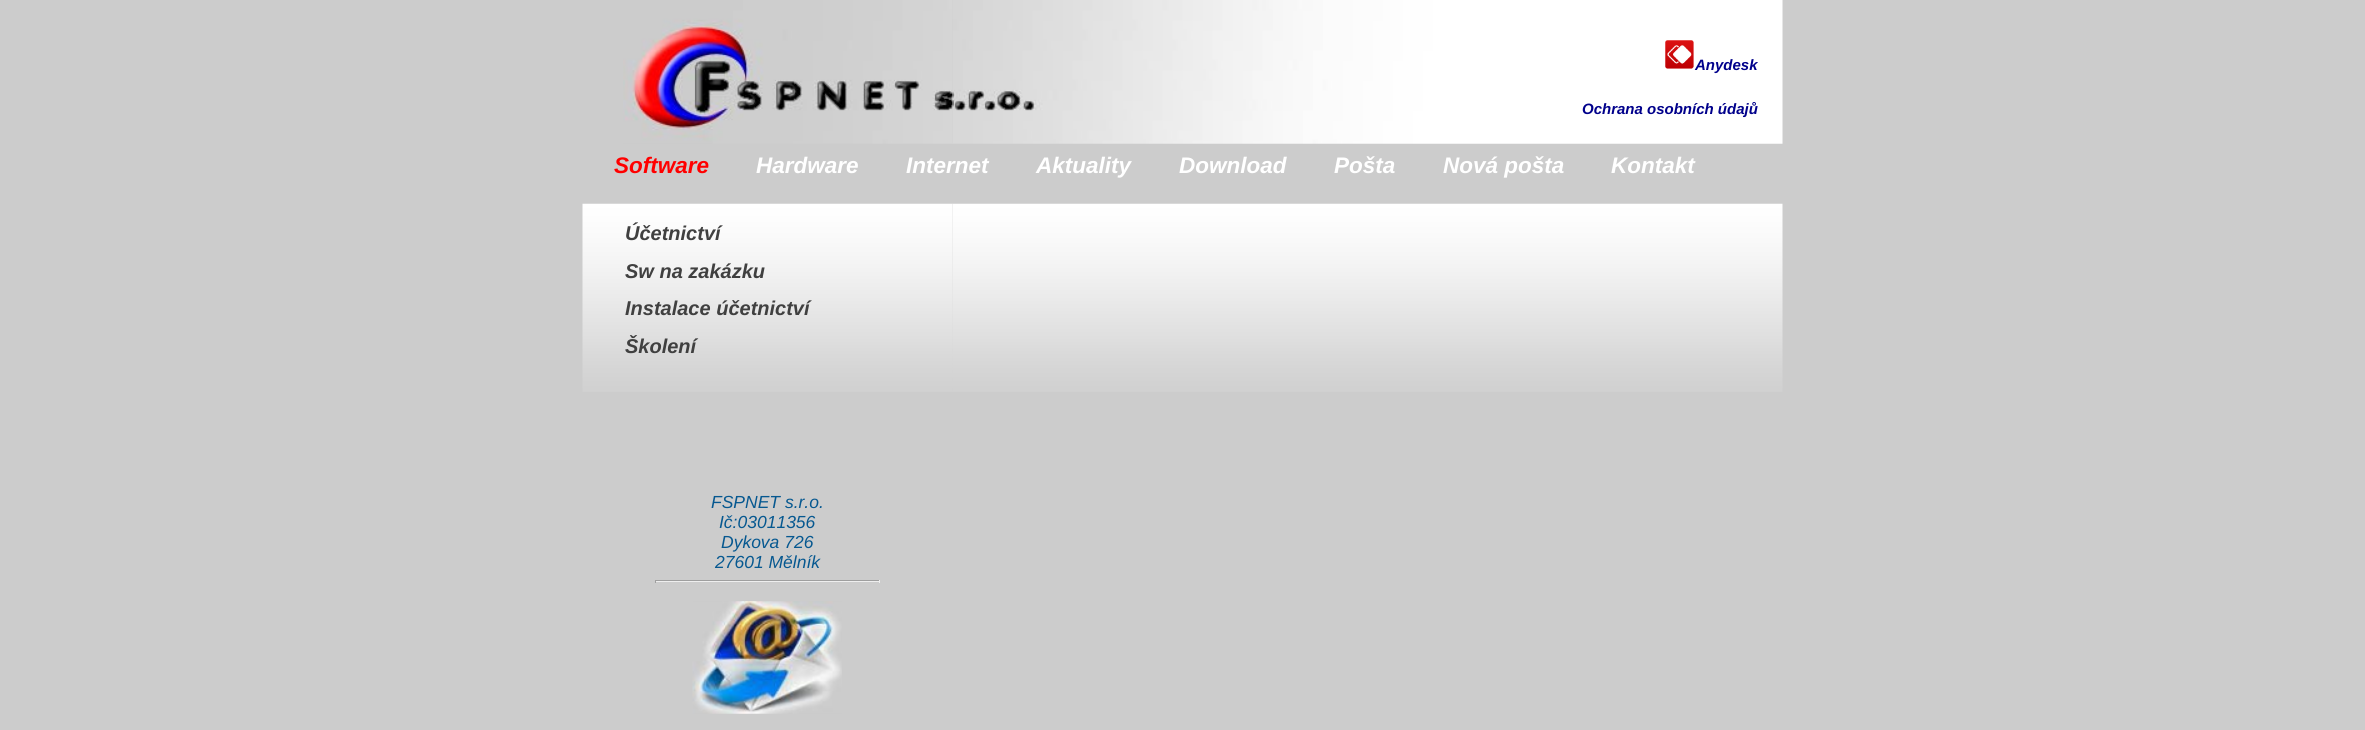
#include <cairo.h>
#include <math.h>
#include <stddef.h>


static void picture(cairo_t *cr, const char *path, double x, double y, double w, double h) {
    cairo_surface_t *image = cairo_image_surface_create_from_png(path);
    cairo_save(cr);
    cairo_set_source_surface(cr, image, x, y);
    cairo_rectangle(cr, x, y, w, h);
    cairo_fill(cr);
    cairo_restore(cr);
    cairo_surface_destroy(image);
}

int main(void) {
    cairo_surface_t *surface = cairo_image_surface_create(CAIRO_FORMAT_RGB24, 2365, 730);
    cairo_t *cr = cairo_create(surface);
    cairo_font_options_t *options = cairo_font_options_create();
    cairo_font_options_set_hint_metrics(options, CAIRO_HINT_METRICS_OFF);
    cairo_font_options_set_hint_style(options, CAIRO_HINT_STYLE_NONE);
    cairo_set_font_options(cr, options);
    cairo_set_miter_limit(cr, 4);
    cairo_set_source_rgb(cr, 0.8, 0.8, 0.8);
    cairo_paint(cr);
    picture(cr, "img1.png", 623, 0, 330, 144);
    picture(cr, "img2.png", 952, 0, 831, 144);
    picture(cr, "img3.png", 1665, 40, 29, 29);
    cairo_select_font_face(cr, "Liberation Sans", CAIRO_FONT_SLANT_ITALIC, CAIRO_FONT_WEIGHT_BOLD);
    cairo_set_font_size(cr, 15);
    cairo_set_source_rgb(cr, 0, 0, 0.545);
    cairo_move_to(cr, 1695, 70);
    cairo_show_text(cr, "Anydesk");
    cairo_move_to(cr, 1582, 114);
    cairo_show_text(cr, "Ochrana osobních údajů");
    cairo_set_font_size(cr, 22.5);
    cairo_set_source_rgb(cr, 1, 0, 0);
    cairo_move_to(cr, 614, 173);
    cairo_show_text(cr, "Software");
    cairo_set_source_rgb(cr, 1, 1, 1);
    cairo_move_to(cr, 756, 173);
    cairo_show_text(cr, "Hardware");
    cairo_move_to(cr, 906, 173);
    cairo_show_text(cr, "Internet");
    cairo_move_to(cr, 1036, 173);
    cairo_show_text(cr, "Aktuality");
    cairo_move_to(cr, 1179, 173);
    cairo_show_text(cr, "Download");
    cairo_move_to(cr, 1334, 173);
    cairo_show_text(cr, "Pošta");
    cairo_move_to(cr, 1443, 173);
    cairo_show_text(cr, "Nová pošta");
    cairo_move_to(cr, 1611, 173);
    cairo_show_text(cr, "Kontakt");
    picture(cr, "img4.png", 582, 203, 371, 189);
    cairo_set_font_size(cr, 20);
    cairo_set_source_rgb(cr, 0.251, 0.251, 0.251);
    cairo_move_to(cr, 625, 240);
    cairo_show_text(cr, "Účetnictví");
    cairo_move_to(cr, 625, 278);
    cairo_show_text(cr, "Sw na zakázku");
    cairo_move_to(cr, 625, 315);
    cairo_show_text(cr, "Instalace účetnictví");
    cairo_move_to(cr, 625, 353);
    cairo_show_text(cr, "Školení");
    cairo_select_font_face(cr, "Liberation Sans", CAIRO_FONT_SLANT_ITALIC, CAIRO_FONT_WEIGHT_NORMAL);
    cairo_set_font_size(cr, 17.5);
    cairo_set_source_rgb(cr, 0.027, 0.345, 0.565);
    cairo_move_to(cr, 711, 508);
    cairo_show_text(cr, "FSPNET s.r.o.");
    cairo_move_to(cr, 719, 528);
    cairo_show_text(cr, "Ič:03011356");
    cairo_move_to(cr, 721, 548);
    cairo_show_text(cr, "Dykova 726");
    cairo_move_to(cr, 715, 568);
    cairo_show_text(cr, "27601 Mělník");
    cairo_set_source_rgb(cr, 0.624, 0.624, 0.624);
    cairo_rectangle(cr, 655, 580, 225, 1);
    cairo_fill(cr);
    cairo_set_source_rgb(cr, 0.933, 0.933, 0.933);
    cairo_rectangle(cr, 879, 580, 1, 3);
    cairo_fill(cr);
    cairo_rectangle(cr, 655, 581, 225, 1);
    cairo_fill(cr);
    cairo_set_source_rgb(cr, 0.624, 0.624, 0.624);
    cairo_rectangle(cr, 655, 580, 1, 3);
    cairo_fill(cr);
    picture(cr, "img5.png", 692, 601, 150, 113);
    picture(cr, "img6.png", 952, 203, 831, 189);
    cairo_surface_write_to_png(surface, "page.png");
    cairo_font_options_destroy(options);
    cairo_destroy(cr);
    cairo_surface_destroy(surface);
    return 0;
}
